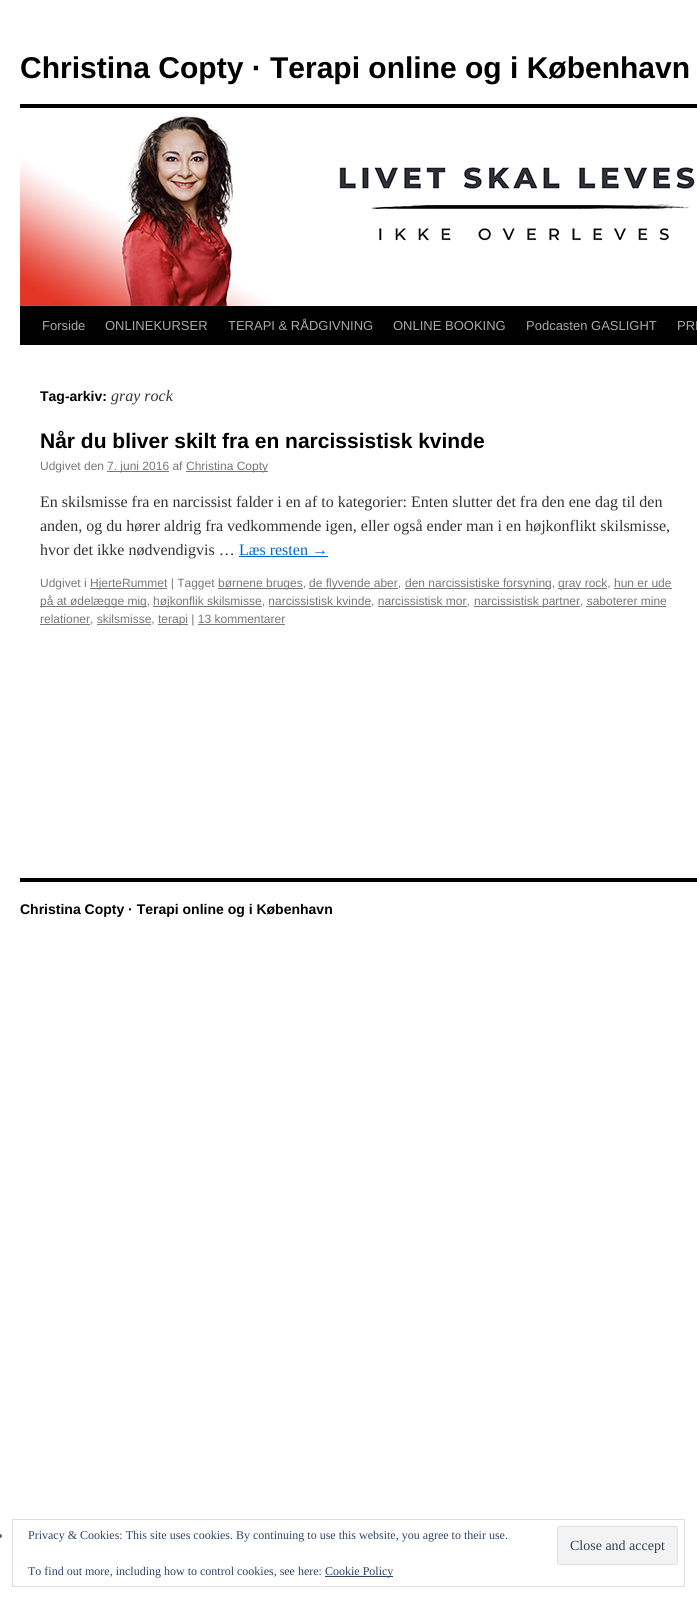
#include <cairo.h>
#include <math.h>
#include <stddef.h>


static void round_rect(cairo_t *cr, double x, double y, double w, double h, double r) {
    cairo_new_sub_path(cr);
    cairo_arc(cr, x + w - r, y + h - r, r, 0, M_PI / 2);
    cairo_arc(cr, x + r, y + h - r, r, M_PI / 2, M_PI);
    cairo_arc(cr, x + r, y + r, r, M_PI, 1.5 * M_PI);
    cairo_arc(cr, x + w - r, y + r, r, 1.5 * M_PI, 2 * M_PI);
    cairo_close_path(cr);
}

static void picture(cairo_t *cr, const char *path, double x, double y, double w, double h) {
    cairo_surface_t *image = cairo_image_surface_create_from_png(path);
    cairo_save(cr);
    cairo_set_source_surface(cr, image, x, y);
    cairo_rectangle(cr, x, y, w, h);
    cairo_fill(cr);
    cairo_restore(cr);
    cairo_surface_destroy(image);
}

int main(void) {
    cairo_surface_t *surface = cairo_image_surface_create(CAIRO_FORMAT_RGB24, 697, 1599);
    cairo_t *cr = cairo_create(surface);
    cairo_font_options_t *options = cairo_font_options_create();
    cairo_font_options_set_hint_metrics(options, CAIRO_HINT_METRICS_OFF);
    cairo_font_options_set_hint_style(options, CAIRO_HINT_STYLE_NONE);
    cairo_set_font_options(cr, options);
    cairo_set_miter_limit(cr, 4);
    cairo_set_source_rgb(cr, 1, 1, 1);
    cairo_paint(cr);
    cairo_select_font_face(cr, "Liberation Sans", CAIRO_FONT_SLANT_NORMAL, CAIRO_FONT_WEIGHT_BOLD);
    cairo_set_font_size(cr, 30);
    cairo_set_source_rgb(cr, 0, 0, 0);
    cairo_move_to(cr, 20, 78);
    cairo_show_text(cr, "Christina Copty · Terapi online og i København");
    cairo_rectangle(cr, 20, 104, 677, 4);
    cairo_fill(cr);
    cairo_rectangle(cr, 20, 306, 677, 39);
    cairo_fill(cr);
    picture(cr, "img1.png", 20, 113, 675, 193);
    cairo_select_font_face(cr, "Liberation Sans", CAIRO_FONT_SLANT_NORMAL, CAIRO_FONT_WEIGHT_NORMAL);
    cairo_set_font_size(cr, 13);
    cairo_set_source_rgb(cr, 0.667, 0.667, 0.667);
    cairo_move_to(cr, 42, 330);
    cairo_show_text(cr, "Forside");
    cairo_move_to(cr, 105, 330);
    cairo_show_text(cr, "ONLINEKURSER");
    cairo_move_to(cr, 228, 330);
    cairo_show_text(cr, "TERAPI & RÅDGIVNING");
    cairo_move_to(cr, 393, 330);
    cairo_show_text(cr, "ONLINE BOOKING");
    cairo_move_to(cr, 526, 330);
    cairo_show_text(cr, "Podcasten GASLIGHT");
    cairo_move_to(cr, 677, 330);
    cairo_show_text(cr, "PRI");
    cairo_select_font_face(cr, "Liberation Sans", CAIRO_FONT_SLANT_NORMAL, CAIRO_FONT_WEIGHT_BOLD);
    cairo_set_font_size(cr, 14);
    cairo_set_source_rgb(cr, 0, 0, 0);
    cairo_move_to(cr, 40, 401);
    cairo_show_text(cr, "Tag-arkiv:");
    cairo_select_font_face(cr, "Liberation Serif", CAIRO_FONT_SLANT_ITALIC, CAIRO_FONT_WEIGHT_NORMAL);
    cairo_set_font_size(cr, 16);
    cairo_set_source_rgb(cr, 0.2, 0.2, 0.2);
    cairo_move_to(cr, 111, 401);
    cairo_show_text(cr, "gray rock");
    cairo_select_font_face(cr, "Liberation Sans", CAIRO_FONT_SLANT_NORMAL, CAIRO_FONT_WEIGHT_BOLD);
    cairo_set_font_size(cr, 21);
    cairo_set_source_rgb(cr, 0, 0, 0);
    cairo_move_to(cr, 40, 448);
    cairo_show_text(cr, "Når du bliver skilt fra en narcissistisk kvinde");
    cairo_select_font_face(cr, "Liberation Sans", CAIRO_FONT_SLANT_NORMAL, CAIRO_FONT_WEIGHT_NORMAL);
    cairo_set_font_size(cr, 12);
    cairo_set_source_rgb(cr, 0.467, 0.467, 0.467);
    cairo_move_to(cr, 40, 470);
    cairo_show_text(cr, "Udgivet den");
    cairo_rectangle(cr, 107, 471, 62, 1);
    cairo_fill(cr);
    cairo_move_to(cr, 107, 470);
    cairo_show_text(cr, "7. juni 2016 af");
    cairo_rectangle(cr, 186, 471, 82, 1);
    cairo_fill(cr);
    cairo_move_to(cr, 186, 470);
    cairo_show_text(cr, "Christina Copty");
    cairo_select_font_face(cr, "Liberation Serif", CAIRO_FONT_SLANT_NORMAL, CAIRO_FONT_WEIGHT_NORMAL);
    cairo_set_font_size(cr, 16);
    cairo_set_source_rgb(cr, 0.2, 0.2, 0.2);
    cairo_move_to(cr, 40, 507);
    cairo_show_text(cr, "En skilsmisse fra en narcissist falder i en af to kategorier: Enten slutter det fra den ene dag til den");
    cairo_move_to(cr, 40, 531);
    cairo_show_text(cr, "anden, og du hører aldrig fra vedkommende igen, eller også ender man i en højkonflikt skilsmisse,");
    cairo_move_to(cr, 40, 555);
    cairo_show_text(cr, "hvor det ikke nødvendigvis …");
    cairo_set_source_rgb(cr, 0, 0.4, 0.8);
    cairo_move_to(cr, 239, 555);
    cairo_show_text(cr, "Læs resten →");
    cairo_rectangle(cr, 239, 556, 89, 1);
    cairo_fill(cr);
    cairo_select_font_face(cr, "Liberation Sans", CAIRO_FONT_SLANT_NORMAL, CAIRO_FONT_WEIGHT_NORMAL);
    cairo_set_font_size(cr, 12);
    cairo_set_source_rgb(cr, 0.467, 0.467, 0.467);
    cairo_move_to(cr, 40, 587);
    cairo_show_text(cr, "Udgivet i");
    cairo_rectangle(cr, 90, 588, 77, 1);
    cairo_fill(cr);
    cairo_move_to(cr, 90, 587);
    cairo_show_text(cr, "HjerteRummet | Tagget");
    cairo_rectangle(cr, 218, 588, 85, 1);
    cairo_fill(cr);
    cairo_move_to(cr, 218, 587);
    cairo_show_text(cr, "børnene bruges,");
    cairo_rectangle(cr, 309, 588, 89, 1);
    cairo_fill(cr);
    cairo_move_to(cr, 309, 587);
    cairo_show_text(cr, "de flyvende aber,");
    cairo_rectangle(cr, 405, 588, 146, 1);
    cairo_fill(cr);
    cairo_move_to(cr, 405, 587);
    cairo_show_text(cr, "den narcissistiske forsyning,");
    cairo_rectangle(cr, 558, 588, 49, 1);
    cairo_fill(cr);
    cairo_move_to(cr, 558, 587);
    cairo_show_text(cr, "gray rock, hun er ude");
    cairo_rectangle(cr, 614, 588, 58, 1);
    cairo_fill(cr);
    cairo_rectangle(cr, 40, 606, 107, 1);
    cairo_fill(cr);
    cairo_move_to(cr, 40, 605);
    cairo_show_text(cr, "på at ødelægge mig,");
    cairo_rectangle(cr, 153, 606, 109, 1);
    cairo_fill(cr);
    cairo_move_to(cr, 153, 605);
    cairo_show_text(cr, "højkonflik skilsmisse, narcissistisk kvinde, narcissistisk mor,");
    cairo_rectangle(cr, 269, 606, 102, 1);
    cairo_fill(cr);
    cairo_rectangle(cr, 378, 606, 89, 1);
    cairo_fill(cr);
    cairo_rectangle(cr, 474, 606, 106, 1);
    cairo_fill(cr);
    cairo_move_to(cr, 474, 605);
    cairo_show_text(cr, "narcissistisk partner, saboterer mine");
    cairo_rectangle(cr, 586, 606, 80, 1);
    cairo_fill(cr);
    cairo_rectangle(cr, 40, 624, 50, 1);
    cairo_fill(cr);
    cairo_move_to(cr, 40, 623);
    cairo_show_text(cr, "relationer, skilsmisse,");
    cairo_rectangle(cr, 97, 624, 54, 1);
    cairo_fill(cr);
    cairo_rectangle(cr, 158, 624, 30, 1);
    cairo_fill(cr);
    cairo_move_to(cr, 158, 623);
    cairo_show_text(cr, "terapi | 13 kommentarer");
    cairo_rectangle(cr, 198, 624, 87, 1);
    cairo_fill(cr);
    cairo_set_source_rgb(cr, 0, 0, 0);
    cairo_rectangle(cr, 20, 878, 677, 4);
    cairo_fill(cr);
    cairo_select_font_face(cr, "Liberation Sans", CAIRO_FONT_SLANT_NORMAL, CAIRO_FONT_WEIGHT_BOLD);
    cairo_set_font_size(cr, 14);
    cairo_move_to(cr, 20, 914);
    cairo_show_text(cr, "Christina Copty · Terapi online og i København");
    cairo_set_source_rgb(cr, 0.4, 0.4, 0.4);
    cairo_new_path(cr);
    cairo_arc(cr, 0, 1536, 2, 0, 2 * M_PI);
    cairo_fill(cr);
    cairo_rectangle(cr, 12.5, 1519.5, 672, 67);
    cairo_set_source_rgb(cr, 0.871, 0.871, 0.871);
    cairo_set_line_width(cr, 1);
    cairo_stroke(cr);
    cairo_select_font_face(cr, "Liberation Serif", CAIRO_FONT_SLANT_NORMAL, CAIRO_FONT_WEIGHT_NORMAL);
    cairo_set_font_size(cr, 12);
    cairo_set_source_rgb(cr, 0.18, 0.267, 0.404);
    cairo_move_to(cr, 28, 1539);
    cairo_show_text(cr, "Privacy & Cookies: This site uses cookies. By continuing to use this website, you agree to their use.");
    cairo_set_source_rgb(cr, 0.953, 0.953, 0.953);
    round_rect(cr, 557.5, 1526.5, 120, 38, 2.5);
    cairo_fill_preserve(cr);
    cairo_set_source_rgb(cr, 0.871, 0.871, 0.871);
    cairo_stroke(cr);
    cairo_set_font_size(cr, 14);
    cairo_set_source_rgb(cr, 0.18, 0.267, 0.325);
    cairo_move_to(cr, 570, 1550);
    cairo_show_text(cr, "Close and accept");
    cairo_set_font_size(cr, 12);
    cairo_set_source_rgb(cr, 0.18, 0.267, 0.404);
    cairo_move_to(cr, 28, 1575);
    cairo_show_text(cr, "To find out more, including how to control cookies, see here:");
    cairo_rectangle(cr, 325, 1576, 68, 1);
    cairo_fill(cr);
    cairo_move_to(cr, 325, 1575);
    cairo_show_text(cr, "Cookie Policy");
    cairo_surface_write_to_png(surface, "page.png");
    cairo_font_options_destroy(options);
    cairo_destroy(cr);
    cairo_surface_destroy(surface);
    return 0;
}
